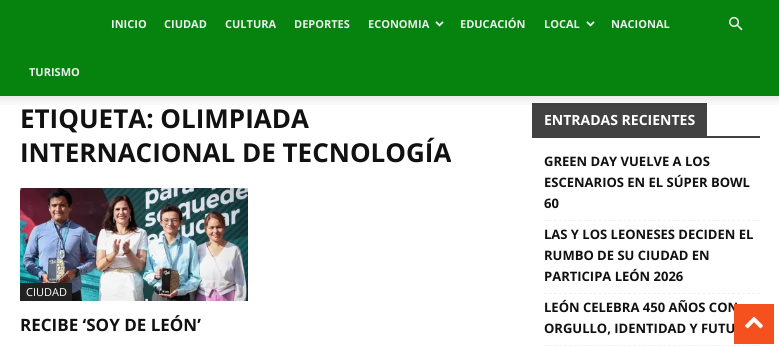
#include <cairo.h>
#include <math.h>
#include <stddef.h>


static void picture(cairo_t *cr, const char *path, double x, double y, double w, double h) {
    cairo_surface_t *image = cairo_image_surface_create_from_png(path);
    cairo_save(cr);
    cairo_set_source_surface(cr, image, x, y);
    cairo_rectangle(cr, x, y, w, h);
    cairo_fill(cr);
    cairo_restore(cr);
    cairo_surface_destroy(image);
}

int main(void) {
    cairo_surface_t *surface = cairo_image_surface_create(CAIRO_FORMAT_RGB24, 779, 348);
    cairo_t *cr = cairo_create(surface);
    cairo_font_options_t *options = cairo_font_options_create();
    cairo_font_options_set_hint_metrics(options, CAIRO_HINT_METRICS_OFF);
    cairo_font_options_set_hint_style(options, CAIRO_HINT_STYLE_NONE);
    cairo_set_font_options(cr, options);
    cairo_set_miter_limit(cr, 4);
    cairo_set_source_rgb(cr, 1, 1, 1);
    cairo_paint(cr);
    cairo_set_source_rgb(cr, 0.024, 0.51, 0.055);
    cairo_rectangle(cr, 0, 0, 779, 96);
    cairo_fill(cr);
    cairo_select_font_face(cr, "Open Sans", CAIRO_FONT_SLANT_NORMAL, CAIRO_FONT_WEIGHT_BOLD);
    cairo_set_font_size(cr, 11);
    cairo_set_source_rgb(cr, 0.929, 0.929, 0.929);
    cairo_move_to(cr, 111, 28);
    cairo_show_text(cr, "INICIO");
    cairo_move_to(cr, 164, 28);
    cairo_show_text(cr, "CIUDAD");
    cairo_move_to(cr, 225, 28);
    cairo_show_text(cr, "CULTURA");
    cairo_move_to(cr, 294, 28);
    cairo_show_text(cr, "DEPORTES");
    cairo_move_to(cr, 368, 28);
    cairo_show_text(cr, "ECONOMIA");
    picture(cr, "img1.png", 435, 21, 9, 6);
    cairo_move_to(cr, 460, 28);
    cairo_show_text(cr, "EDUCACIÓN");
    cairo_move_to(cr, 544, 28);
    cairo_show_text(cr, "LOCAL");
    picture(cr, "img1.png", 586, 21, 9, 6);
    cairo_move_to(cr, 611, 28);
    cairo_show_text(cr, "NACIONAL");
    cairo_move_to(cr, 29, 76);
    cairo_show_text(cr, "TURISMO");
    picture(cr, "img2.png", 729, 16, 14, 15);
    cairo_set_source_rgb(cr, 0.259, 0.259, 0.259);
    cairo_rectangle(cr, 532, 103, 175, 33);
    cairo_fill(cr);
    picture(cr, "img3.png", 0, 96, 779, 9);
    cairo_set_font_size(cr, 26);
    cairo_set_source_rgb(cr, 0.067, 0.067, 0.067);
    cairo_move_to(cr, 20, 128);
    cairo_show_text(cr, "ETIQUETA: OLIMPIADA");
    cairo_move_to(cr, 20, 162);
    cairo_show_text(cr, "INTERNACIONAL DE TECNOLOGÍA");
    picture(cr, "img4.png", 20, 188, 228, 113);
    cairo_set_source_rgb(cr, 0.133, 0.133, 0.133);
    cairo_rectangle(cr, 20, 283, 52, 18);
    cairo_fill(cr);
    cairo_select_font_face(cr, "Open Sans", CAIRO_FONT_SLANT_NORMAL, CAIRO_FONT_WEIGHT_NORMAL);
    cairo_set_font_size(cr, 11);
    cairo_set_source_rgb(cr, 1, 1, 1);
    cairo_move_to(cr, 26, 296);
    cairo_show_text(cr, "CIUDAD");
    cairo_select_font_face(cr, "Open Sans", CAIRO_FONT_SLANT_NORMAL, CAIRO_FONT_WEIGHT_BOLD);
    cairo_set_font_size(cr, 17);
    cairo_set_source_rgb(cr, 0.067, 0.067, 0.067);
    cairo_move_to(cr, 20, 331);
    cairo_show_text(cr, "RECIBE ‘SOY DE LEÓN’");
    cairo_set_source_rgb(cr, 0.259, 0.259, 0.259);
    cairo_rectangle(cr, 532, 136, 228, 2);
    cairo_fill(cr);
    cairo_set_font_size(cr, 14);
    cairo_set_source_rgb(cr, 1, 1, 1);
    cairo_move_to(cr, 544, 125);
    cairo_show_text(cr, "ENTRADAS RECIENTES");
    cairo_new_path(cr);
    cairo_move_to(cr, 544, 220.5);
    cairo_line_to(cr, 760, 220.5);
    cairo_set_source_rgb(cr, 0.945, 0.945, 0.945);
    cairo_set_line_width(cr, 1);
    cairo_set_dash(cr, (double[]){3, 1.95}, 2, 0);
    cairo_stroke(cr);
    cairo_set_font_size(cr, 13);
    cairo_set_source_rgb(cr, 0.067, 0.067, 0.067);
    cairo_move_to(cr, 544, 166);
    cairo_show_text(cr, "GREEN DAY VUELVE A LOS");
    cairo_move_to(cr, 544, 187);
    cairo_show_text(cr, "ESCENARIOS EN EL SÚPER BOWL");
    cairo_move_to(cr, 544, 208);
    cairo_show_text(cr, "60");
    cairo_new_path(cr);
    cairo_move_to(cr, 544, 293.5);
    cairo_line_to(cr, 760, 293.5);
    cairo_set_source_rgb(cr, 0.945, 0.945, 0.945);
    cairo_stroke(cr);
    cairo_set_source_rgb(cr, 0.067, 0.067, 0.067);
    cairo_move_to(cr, 544, 239);
    cairo_show_text(cr, "LAS Y LOS LEONESES DECIDEN EL");
    cairo_move_to(cr, 544, 260);
    cairo_show_text(cr, "RUMBO DE SU CIUDAD EN");
    cairo_move_to(cr, 544, 281);
    cairo_show_text(cr, "PARTICIPA LEÓN 2026");
    cairo_new_path(cr);
    cairo_move_to(cr, 544, 345.5);
    cairo_line_to(cr, 760, 345.5);
    cairo_set_source_rgb(cr, 0.945, 0.945, 0.945);
    cairo_stroke(cr);
    cairo_set_source_rgb(cr, 0.067, 0.067, 0.067);
    cairo_move_to(cr, 544, 312);
    cairo_show_text(cr, "LEÓN CELEBRA 450 AÑOS CON");
    cairo_move_to(cr, 544, 333);
    cairo_show_text(cr, "ORGULLO, IDENTIDAD Y FUTU");
    cairo_set_source_rgb(cr, 0.957, 0.318, 0.118);
    cairo_rectangle(cr, 734, 304, 40, 40);
    cairo_fill(cr);
    picture(cr, "img5.png", 745, 316, 18, 13);
    cairo_surface_write_to_png(surface, "page.png");
    cairo_font_options_destroy(options);
    cairo_destroy(cr);
    cairo_surface_destroy(surface);
    return 0;
}
